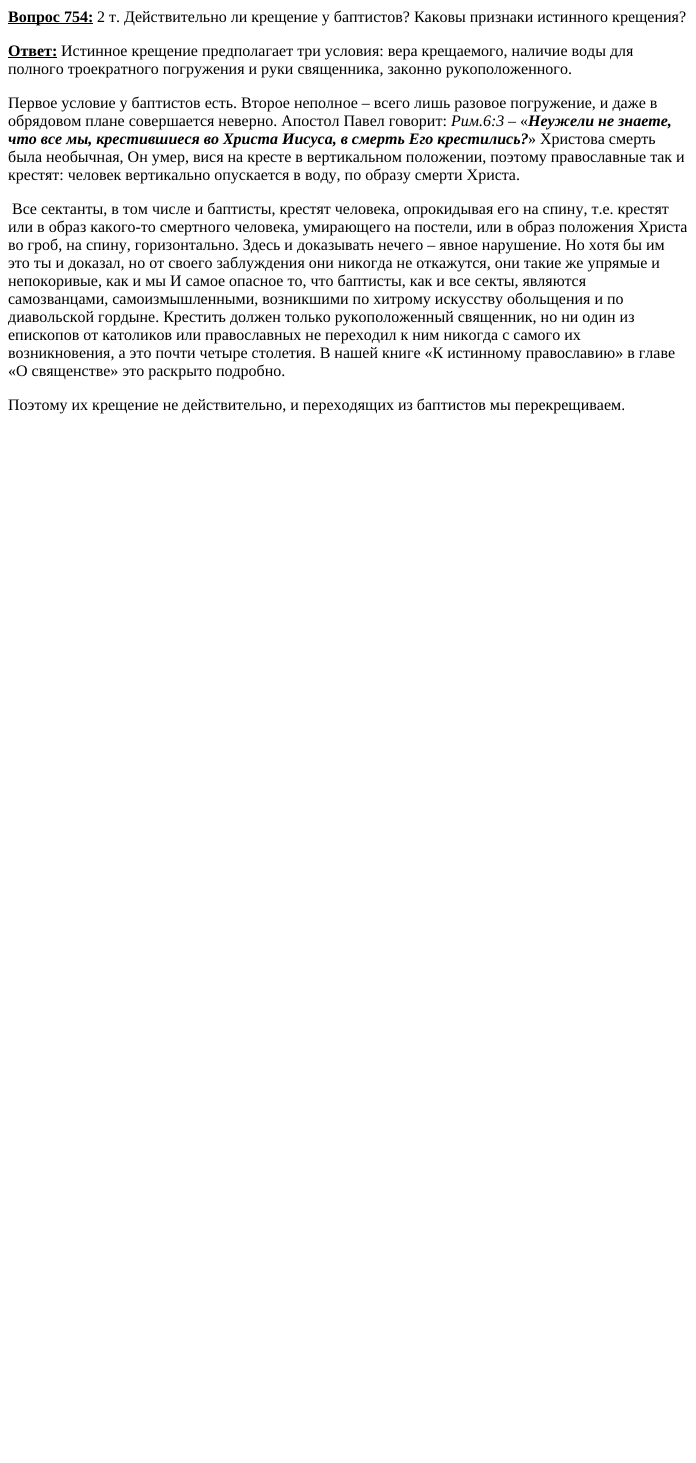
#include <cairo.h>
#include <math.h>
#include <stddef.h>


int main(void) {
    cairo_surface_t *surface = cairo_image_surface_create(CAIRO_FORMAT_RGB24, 696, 1463);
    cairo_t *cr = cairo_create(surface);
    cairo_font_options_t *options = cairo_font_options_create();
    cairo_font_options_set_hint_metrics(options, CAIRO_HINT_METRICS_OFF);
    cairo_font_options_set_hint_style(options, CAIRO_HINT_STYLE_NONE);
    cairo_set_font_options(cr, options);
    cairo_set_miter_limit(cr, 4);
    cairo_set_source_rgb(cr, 1, 1, 1);
    cairo_paint(cr);
    cairo_set_source_rgb(cr, 0, 0, 0);
    cairo_rectangle(cr, 8, 23, 85, 1);
    cairo_fill(cr);
    cairo_select_font_face(cr, "Liberation Serif", CAIRO_FONT_SLANT_NORMAL, CAIRO_FONT_WEIGHT_BOLD);
    cairo_set_font_size(cr, 16);
    cairo_move_to(cr, 8, 22);
    cairo_show_text(cr, "Вопрос 754:");
    cairo_select_font_face(cr, "Liberation Serif", CAIRO_FONT_SLANT_NORMAL, CAIRO_FONT_WEIGHT_NORMAL);
    cairo_move_to(cr, 97, 22);
    cairo_show_text(cr, "2 т. Действительно ли крещение у баптистов? Каковы признаки истинного крещения?");
    cairo_select_font_face(cr, "Liberation Serif", CAIRO_FONT_SLANT_NORMAL, CAIRO_FONT_WEIGHT_BOLD);
    cairo_move_to(cr, 8, 56);
    cairo_show_text(cr, "Ответ:");
    cairo_rectangle(cr, 8, 57, 49, 1);
    cairo_fill(cr);
    cairo_select_font_face(cr, "Liberation Serif", CAIRO_FONT_SLANT_NORMAL, CAIRO_FONT_WEIGHT_NORMAL);
    cairo_move_to(cr, 61, 56);
    cairo_show_text(cr, "Истинное крещение предполагает три условия: вера крещаемого, наличие воды для");
    cairo_move_to(cr, 8, 74);
    cairo_show_text(cr, "полного троекратного погружения и руки священника, законно рукоположенного.");
    cairo_move_to(cr, 8, 108);
    cairo_show_text(cr, "Первое условие у баптистов есть. Второе неполное – всего лишь разовое погружение, и даже в");
    cairo_move_to(cr, 8, 126);
    cairo_show_text(cr, "обрядовом плане совершается неверно. Апостол Павел говорит:");
    cairo_select_font_face(cr, "Liberation Serif", CAIRO_FONT_SLANT_ITALIC, CAIRO_FONT_WEIGHT_NORMAL);
    cairo_move_to(cr, 451, 126);
    cairo_show_text(cr, "Рим.6:3");
    cairo_select_font_face(cr, "Liberation Serif", CAIRO_FONT_SLANT_NORMAL, CAIRO_FONT_WEIGHT_NORMAL);
    cairo_move_to(cr, 508, 126);
    cairo_show_text(cr, "– «");
    cairo_select_font_face(cr, "Liberation Serif", CAIRO_FONT_SLANT_ITALIC, CAIRO_FONT_WEIGHT_BOLD);
    cairo_move_to(cr, 528, 126);
    cairo_show_text(cr, "Неужели не знаете,");
    cairo_move_to(cr, 8, 144);
    cairo_show_text(cr, "что все мы, крестившиеся во Христа Иисуса, в смерть Его крестились?");
    cairo_select_font_face(cr, "Liberation Serif", CAIRO_FONT_SLANT_NORMAL, CAIRO_FONT_WEIGHT_NORMAL);
    cairo_move_to(cr, 528, 144);
    cairo_show_text(cr, "» Христова смерть");
    cairo_move_to(cr, 8, 162);
    cairo_show_text(cr, "была необычная, Он умер, вися на кресте в вертикальном положении, поэтому православные так и");
    cairo_move_to(cr, 8, 180);
    cairo_show_text(cr, "крестят: человек вертикально опускается в воду, по образу смерти Христа.");
    cairo_move_to(cr, 12, 214);
    cairo_show_text(cr, "Все сектанты, в том числе и баптисты, крестят человека, опрокидывая его на спину, т.е. крестят");
    cairo_move_to(cr, 8, 232);
    cairo_show_text(cr, "или в образ какого-то смертного человека, умирающего на постели, или в образ положения Христа");
    cairo_move_to(cr, 8, 250);
    cairo_show_text(cr, "во гроб, на спину, горизонтально. Здесь и доказывать нечего – явное нарушение. Но хотя бы им");
    cairo_move_to(cr, 8, 268);
    cairo_show_text(cr, "это ты и доказал, но от своего заблуждения они никогда не откажутся, они такие же упрямые и");
    cairo_move_to(cr, 8, 286);
    cairo_show_text(cr, "непокоривые, как и мы И самое опасное то, что баптисты, как и все секты, являются");
    cairo_move_to(cr, 8, 304);
    cairo_show_text(cr, "самозванцами, самоизмышленными, возникшими по хитрому искусству обольщения и по");
    cairo_move_to(cr, 8, 322);
    cairo_show_text(cr, "диавольской гордыне. Крестить должен только рукоположенный священник, но ни один из");
    cairo_move_to(cr, 8, 340);
    cairo_show_text(cr, "епископов от католиков или православных не переходил к ним никогда с самого их");
    cairo_move_to(cr, 8, 358);
    cairo_show_text(cr, "возникновения, а это почти четыре столетия. В нашей книге «К истинному православию» в главе");
    cairo_move_to(cr, 8, 376);
    cairo_show_text(cr, "«О священстве» это раскрыто подробно.");
    cairo_move_to(cr, 8, 410);
    cairo_show_text(cr, "Поэтому их крещение не действительно, и переходящих из баптистов мы перекрещиваем.");
    cairo_surface_write_to_png(surface, "page.png");
    cairo_font_options_destroy(options);
    cairo_destroy(cr);
    cairo_surface_destroy(surface);
    return 0;
}
